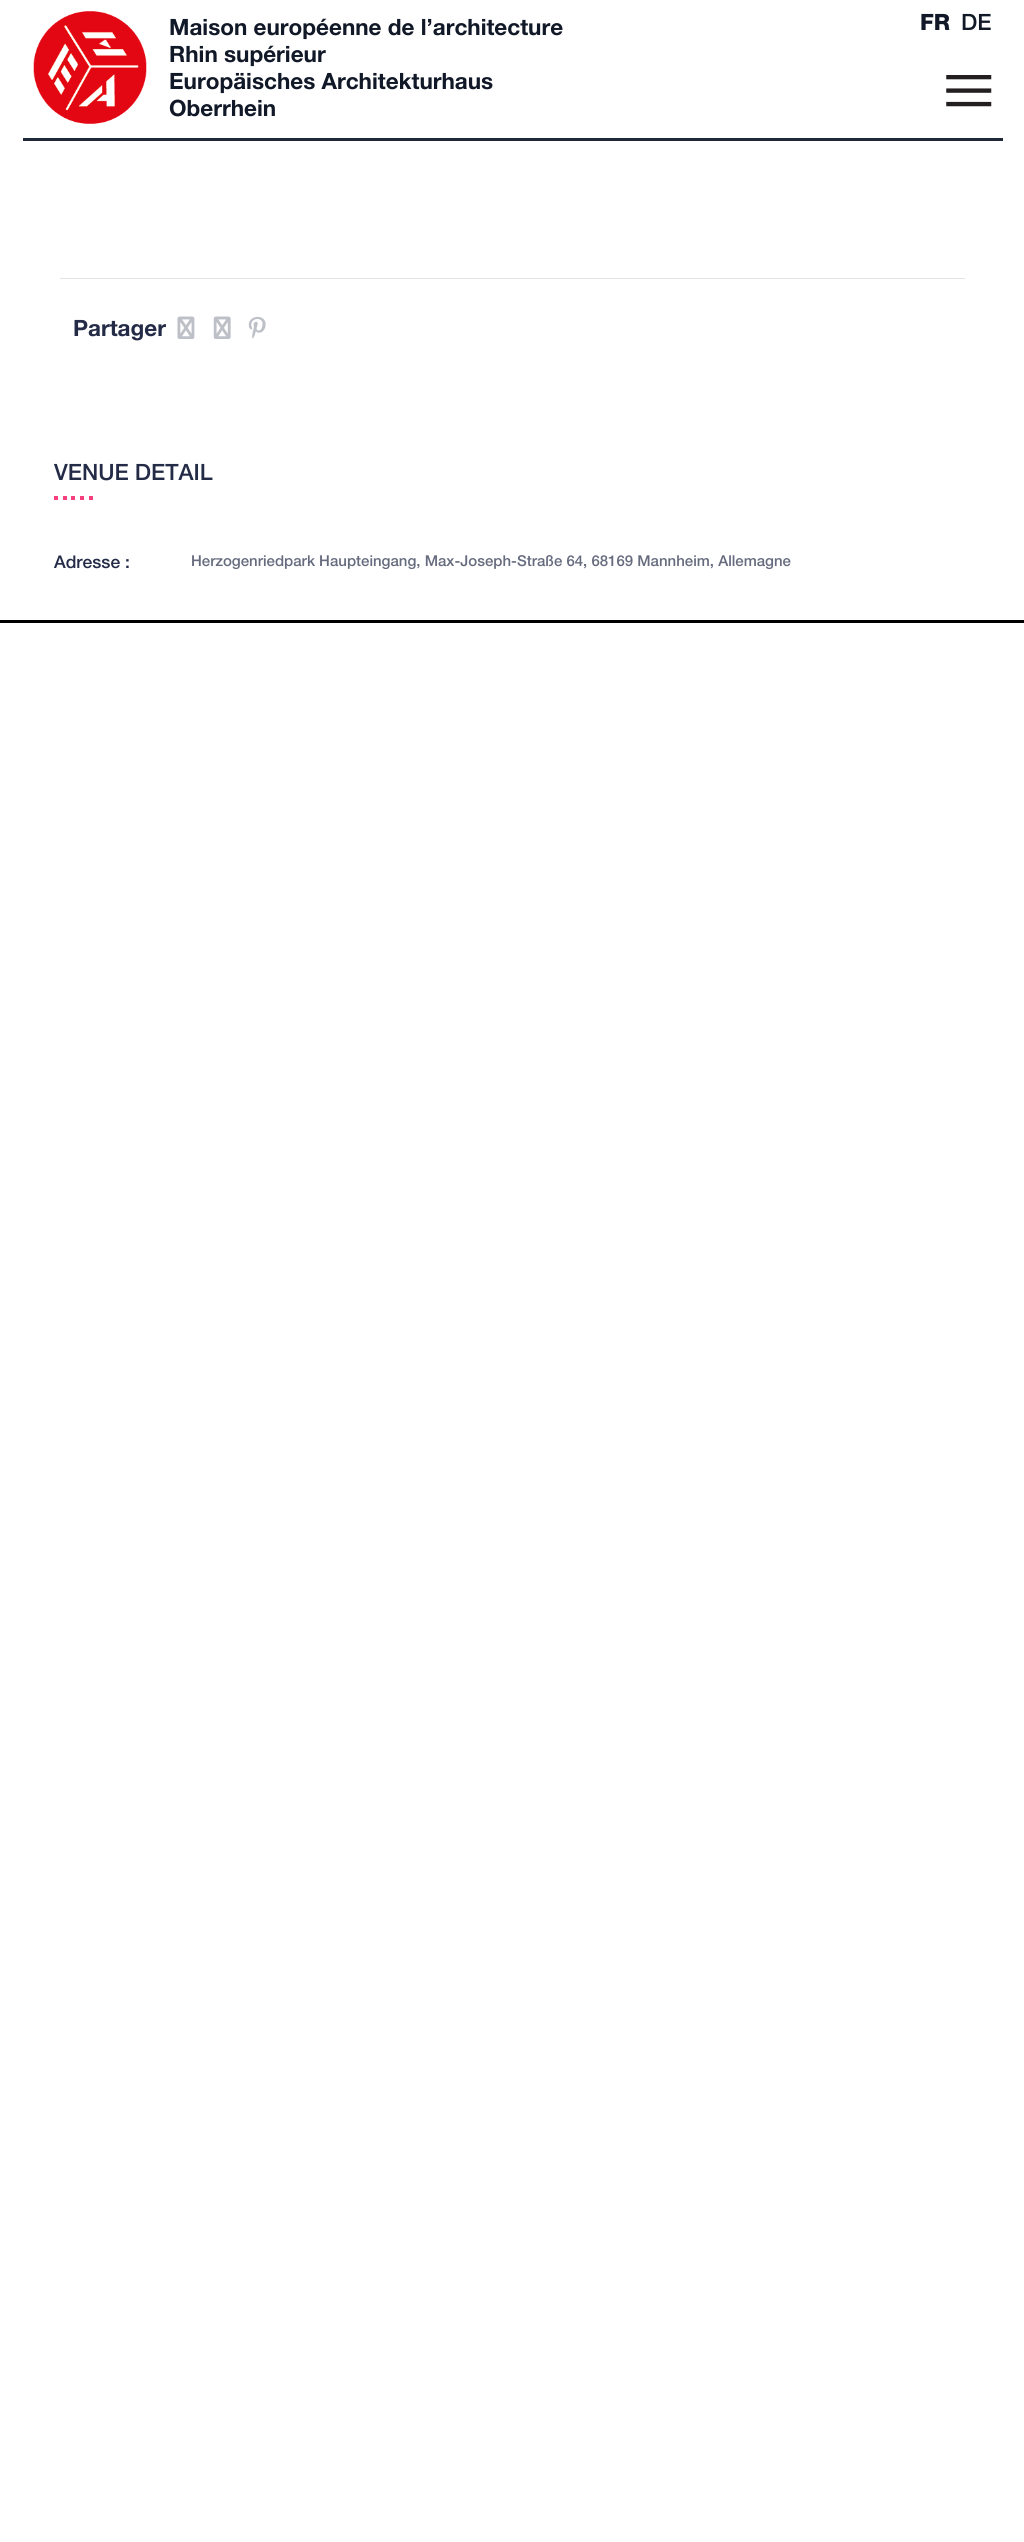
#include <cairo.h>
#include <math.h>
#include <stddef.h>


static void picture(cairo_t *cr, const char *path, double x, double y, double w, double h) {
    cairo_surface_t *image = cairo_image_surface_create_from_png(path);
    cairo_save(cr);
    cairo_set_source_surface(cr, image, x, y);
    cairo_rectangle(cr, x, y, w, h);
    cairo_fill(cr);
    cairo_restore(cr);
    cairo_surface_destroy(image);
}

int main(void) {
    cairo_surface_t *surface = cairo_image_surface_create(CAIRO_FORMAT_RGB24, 1024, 2542);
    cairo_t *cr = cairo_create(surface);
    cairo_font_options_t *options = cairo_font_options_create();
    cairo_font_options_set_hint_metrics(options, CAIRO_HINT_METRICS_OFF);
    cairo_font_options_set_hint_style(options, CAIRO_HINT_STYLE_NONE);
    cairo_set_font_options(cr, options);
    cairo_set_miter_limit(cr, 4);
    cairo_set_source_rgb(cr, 1, 1, 1);
    cairo_paint(cr);
    picture(cr, "img1.png", 33, 11, 114, 113);
    cairo_select_font_face(cr, "Helvetica Neue", CAIRO_FONT_SLANT_NORMAL, CAIRO_FONT_WEIGHT_BOLD);
    cairo_set_font_size(cr, 22.5);
    cairo_set_source_rgb(cr, 0.067, 0.094, 0.153);
    cairo_move_to(cr, 169, 35);
    cairo_show_text(cr, "Maison européenne de l’architecture");
    cairo_move_to(cr, 169, 62);
    cairo_show_text(cr, "Rhin supérieur");
    cairo_move_to(cr, 169, 89);
    cairo_show_text(cr, "Europäisches Architekturhaus");
    cairo_move_to(cr, 169, 116);
    cairo_show_text(cr, "Oberrhein");
    cairo_select_font_face(cr, "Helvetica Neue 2", CAIRO_FONT_SLANT_NORMAL, CAIRO_FONT_WEIGHT_BOLD);
    cairo_move_to(cr, 920, 30);
    cairo_show_text(cr, "FR");
    cairo_select_font_face(cr, "Helvetica Neue Medium", CAIRO_FONT_SLANT_NORMAL, CAIRO_FONT_WEIGHT_NORMAL);
    cairo_move_to(cr, 961, 30);
    cairo_show_text(cr, "DE");
    picture(cr, "img2.png", 946, 75, 46, 32);
    cairo_set_source_rgb(cr, 0.122, 0.161, 0.216);
    cairo_rectangle(cr, 23, 138, 980, 3);
    cairo_fill(cr);
    cairo_set_source_rgb(cr, 0.89, 0.89, 0.89);
    cairo_rectangle(cr, 60, 278, 905, 1);
    cairo_fill(cr);
    cairo_select_font_face(cr, "Helvetica Neue", CAIRO_FONT_SLANT_NORMAL, CAIRO_FONT_WEIGHT_BOLD);
    cairo_set_source_rgb(cr, 0.141, 0.169, 0.275);
    cairo_move_to(cr, 73, 336);
    cairo_show_text(cr, "Partager");
    picture(cr, "img3.png", 177, 316, 18, 23);
    picture(cr, "img4.png", 213, 316, 18, 23);
    picture(cr, "img5.png", 248, 316, 18, 23);
    cairo_select_font_face(cr, "Helvetica Neue Medium", CAIRO_FONT_SLANT_NORMAL, CAIRO_FONT_WEIGHT_NORMAL);
    cairo_move_to(cr, 54, 480);
    cairo_show_text(cr, "VENUE DETAIL");
    cairo_set_source_rgb(cr, 0.961, 0.247, 0.482);
    cairo_rectangle(cr, 54, 496, 4, 4);
    cairo_fill(cr);
    cairo_rectangle(cr, 63, 496, 4, 4);
    cairo_fill(cr);
    cairo_rectangle(cr, 71, 496, 4, 4);
    cairo_fill(cr);
    cairo_rectangle(cr, 80, 496, 4, 4);
    cairo_fill(cr);
    cairo_rectangle(cr, 89, 496, 4, 4);
    cairo_fill(cr);
    cairo_set_font_size(cr, 17.5);
    cairo_set_source_rgb(cr, 0.141, 0.169, 0.275);
    cairo_move_to(cr, 54, 568);
    cairo_show_text(cr, "Adresse :");
    cairo_set_font_size(cr, 15);
    cairo_set_source_rgb(cr, 0.4, 0.42, 0.494);
    cairo_move_to(cr, 191, 566);
    cairo_show_text(cr, "Herzogenriedpark Haupteingang, Max-Joseph-Straße 64, 68169 Mannheim, Allemagne");
    cairo_set_source_rgb(cr, 0, 0, 0);
    cairo_rectangle(cr, 0, 620, 1024, 3);
    cairo_fill(cr);
    cairo_surface_write_to_png(surface, "page.png");
    cairo_font_options_destroy(options);
    cairo_destroy(cr);
    cairo_surface_destroy(surface);
    return 0;
}
